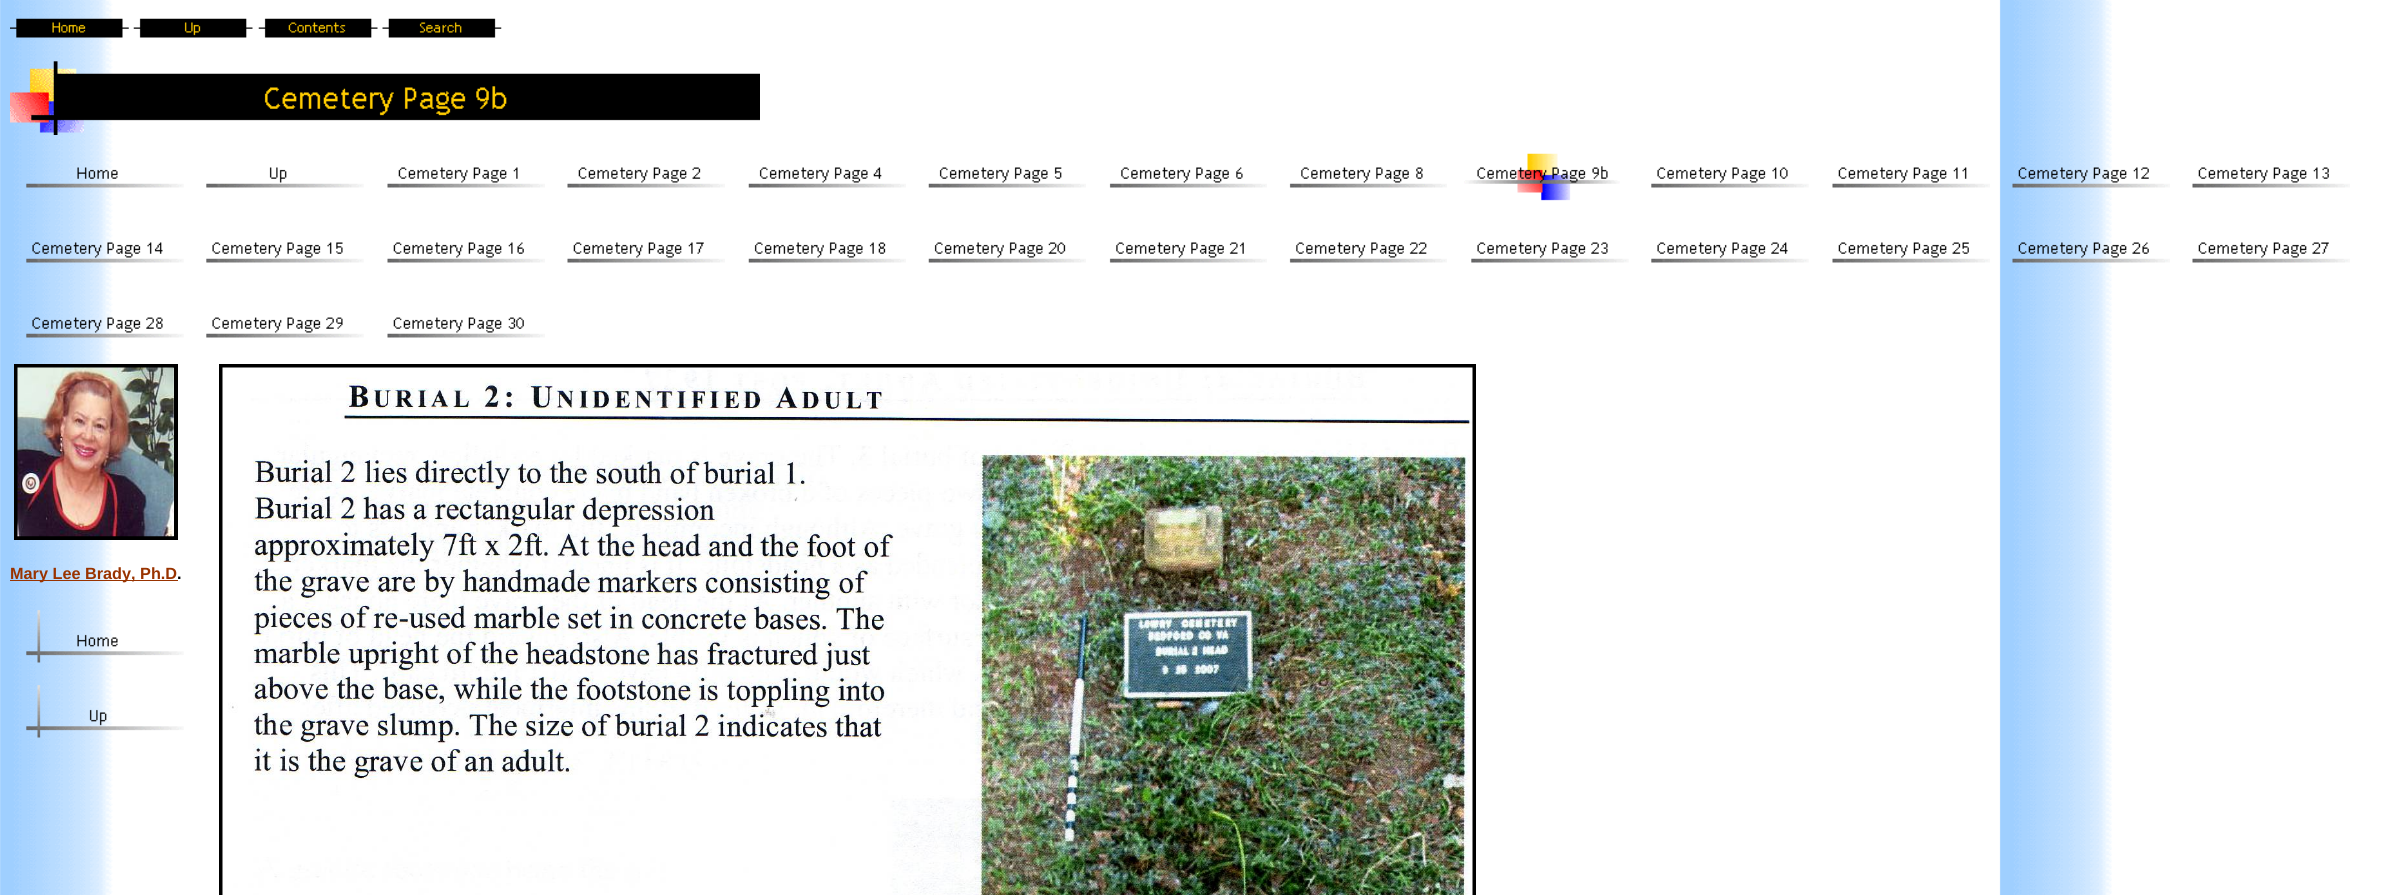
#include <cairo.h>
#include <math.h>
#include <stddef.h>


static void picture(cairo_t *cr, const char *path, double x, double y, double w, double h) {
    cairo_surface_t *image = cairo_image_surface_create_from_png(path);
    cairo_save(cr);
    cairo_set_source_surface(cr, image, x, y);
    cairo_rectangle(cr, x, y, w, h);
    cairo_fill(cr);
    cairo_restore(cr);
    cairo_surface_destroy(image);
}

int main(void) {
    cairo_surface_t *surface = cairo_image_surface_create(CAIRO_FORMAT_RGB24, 2381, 895);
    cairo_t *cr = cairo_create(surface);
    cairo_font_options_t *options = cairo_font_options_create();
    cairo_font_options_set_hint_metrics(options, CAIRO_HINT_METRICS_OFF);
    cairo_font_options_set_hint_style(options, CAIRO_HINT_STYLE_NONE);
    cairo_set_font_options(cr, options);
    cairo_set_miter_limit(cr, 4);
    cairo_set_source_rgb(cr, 1, 1, 1);
    cairo_paint(cr);
    picture(cr, "img1.png", 0, 0, 2112, 895);
    picture(cr, "img2.png", 10, 18, 119, 20);
    picture(cr, "img3.png", 133, 18, 120, 20);
    picture(cr, "img4.png", 258, 18, 120, 20);
    picture(cr, "img5.png", 382, 18, 120, 20);
    picture(cr, "img6.png", 10, 61, 750, 74);
    picture(cr, "img7.png", 26, 167, 158, 21);
    picture(cr, "img8.png", 206, 167, 158, 21);
    picture(cr, "img9.png", 387, 167, 158, 21);
    picture(cr, "img10.png", 567, 167, 158, 21);
    picture(cr, "img11.png", 748, 167, 158, 21);
    picture(cr, "img12.png", 928, 167, 158, 21);
    picture(cr, "img13.png", 1109, 167, 158, 21);
    picture(cr, "img14.png", 1289, 167, 158, 21);
    picture(cr, "img15.png", 1464, 153, 156, 48);
    picture(cr, "img16.png", 1651, 167, 158, 21);
    picture(cr, "img17.png", 1832, 167, 158, 21);
    picture(cr, "img18.png", 2012, 167, 158, 21);
    picture(cr, "img19.png", 2192, 167, 158, 21);
    picture(cr, "img20.png", 26, 242, 158, 21);
    picture(cr, "img21.png", 206, 242, 158, 21);
    picture(cr, "img22.png", 387, 242, 158, 21);
    picture(cr, "img23.png", 567, 242, 158, 21);
    picture(cr, "img24.png", 748, 242, 158, 21);
    picture(cr, "img25.png", 928, 242, 158, 21);
    picture(cr, "img26.png", 1109, 242, 158, 21);
    picture(cr, "img27.png", 1289, 242, 158, 21);
    picture(cr, "img28.png", 1471, 242, 158, 21);
    picture(cr, "img29.png", 1651, 242, 158, 21);
    picture(cr, "img30.png", 1832, 242, 158, 21);
    picture(cr, "img31.png", 2012, 242, 158, 21);
    picture(cr, "img32.png", 2192, 242, 158, 21);
    picture(cr, "img33.png", 26, 317, 158, 21);
    picture(cr, "img34.png", 206, 317, 158, 21);
    picture(cr, "img35.png", 387, 317, 158, 21);
    cairo_rectangle(cr, 16, 366, 160, 172);
    cairo_set_source_rgb(cr, 0, 0, 0);
    cairo_set_line_width(cr, 4);
    cairo_stroke(cr);
    picture(cr, "img36.png", 17, 367, 157, 170);
    cairo_set_source_rgb(cr, 0.6, 0.2, 0);
    cairo_rectangle(cr, 10, 580, 168, 1);
    cairo_fill(cr);
    cairo_select_font_face(cr, "Liberation Sans", CAIRO_FONT_SLANT_NORMAL, CAIRO_FONT_WEIGHT_BOLD);
    cairo_set_font_size(cr, 16.25);
    cairo_move_to(cr, 10, 579);
    cairo_show_text(cr, "Mary Lee Brady, Ph.D");
    cairo_set_source_rgb(cr, 0, 0, 0);
    cairo_move_to(cr, 177, 579);
    cairo_show_text(cr, ".");
    picture(cr, "img37.png", 26, 610, 158, 53);
    picture(cr, "img38.png", 26, 685, 158, 53);
    cairo_rectangle(cr, 221, 366, 1253, 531);
    cairo_stroke(cr);
    picture(cr, "img39.png", 222, 367, 1251, 528);
    cairo_surface_write_to_png(surface, "page.png");
    cairo_font_options_destroy(options);
    cairo_destroy(cr);
    cairo_surface_destroy(surface);
    return 0;
}
